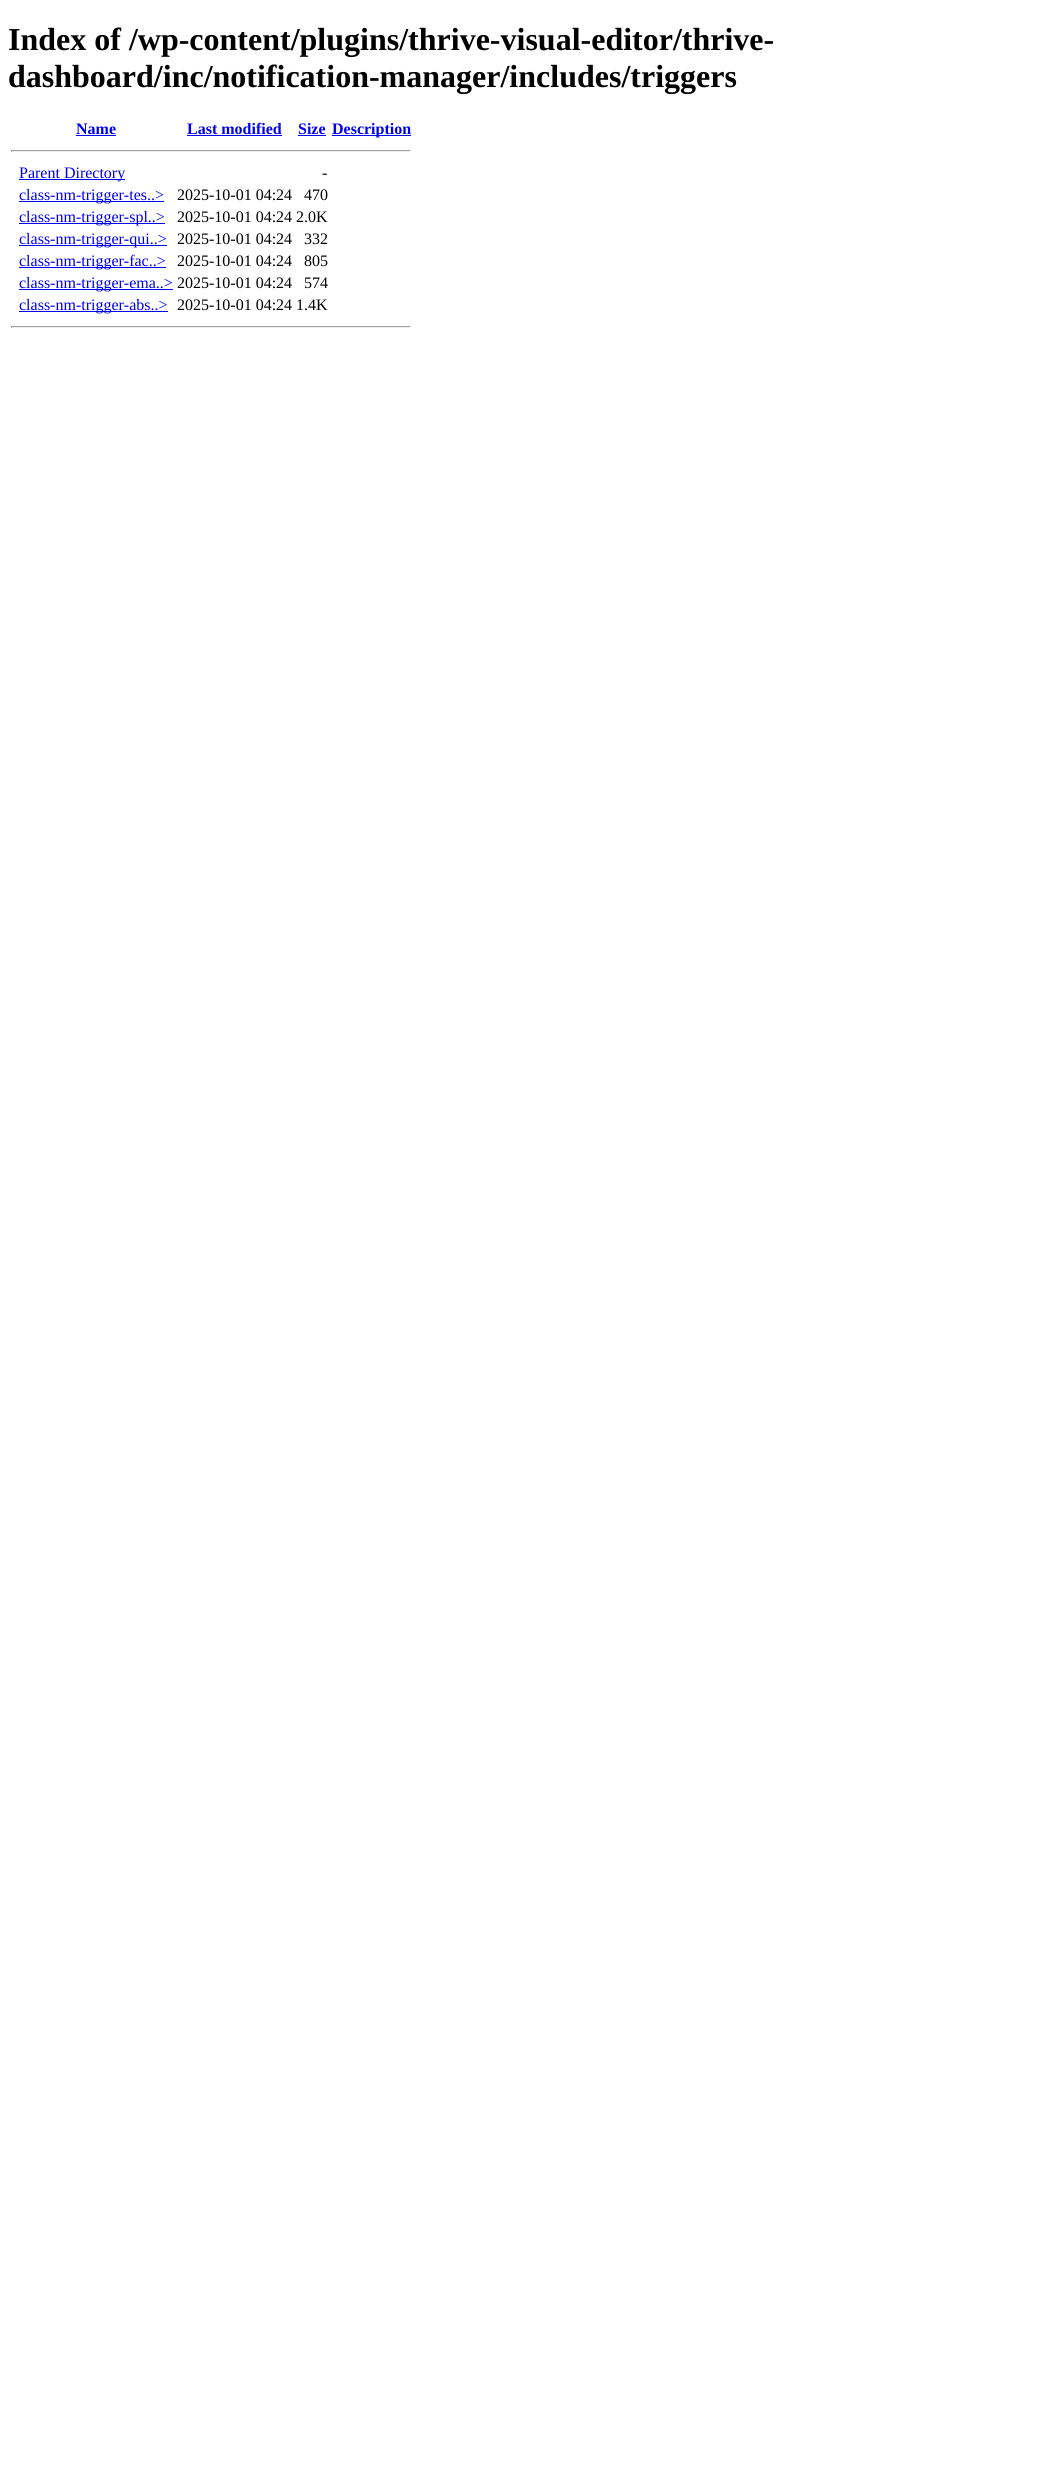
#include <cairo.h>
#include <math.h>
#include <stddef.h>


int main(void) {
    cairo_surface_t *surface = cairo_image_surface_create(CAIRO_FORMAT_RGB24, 1054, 2486);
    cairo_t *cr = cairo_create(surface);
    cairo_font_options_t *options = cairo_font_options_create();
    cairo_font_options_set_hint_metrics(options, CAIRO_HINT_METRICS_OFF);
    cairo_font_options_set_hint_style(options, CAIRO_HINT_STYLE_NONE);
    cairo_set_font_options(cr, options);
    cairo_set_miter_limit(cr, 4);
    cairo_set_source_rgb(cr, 1, 1, 1);
    cairo_paint(cr);
    cairo_select_font_face(cr, "Liberation Serif", CAIRO_FONT_SLANT_NORMAL, CAIRO_FONT_WEIGHT_BOLD);
    cairo_set_font_size(cr, 32);
    cairo_set_source_rgb(cr, 0, 0, 0);
    cairo_move_to(cr, 8, 50);
    cairo_show_text(cr, "Index of /wp-content/plugins/thrive-visual-editor/thrive-");
    cairo_move_to(cr, 8, 87);
    cairo_show_text(cr, "dashboard/inc/notification-manager/includes/triggers");
    cairo_set_font_size(cr, 16);
    cairo_set_source_rgb(cr, 0, 0, 0.933);
    cairo_move_to(cr, 76, 134);
    cairo_show_text(cr, "Name");
    cairo_rectangle(cr, 76, 135, 40, 1);
    cairo_fill(cr);
    cairo_move_to(cr, 187, 134);
    cairo_show_text(cr, "Last modified");
    cairo_rectangle(cr, 187, 135, 95, 1);
    cairo_fill(cr);
    cairo_move_to(cr, 298, 134);
    cairo_show_text(cr, "Size");
    cairo_rectangle(cr, 298, 135, 28, 1);
    cairo_fill(cr);
    cairo_rectangle(cr, 332, 135, 79, 1);
    cairo_fill(cr);
    cairo_move_to(cr, 332, 134);
    cairo_show_text(cr, "Description");
    cairo_set_source_rgb(cr, 0.624, 0.624, 0.624);
    cairo_rectangle(cr, 11, 150, 400, 1);
    cairo_fill(cr);
    cairo_set_source_rgb(cr, 0.933, 0.933, 0.933);
    cairo_rectangle(cr, 410, 150, 1, 2);
    cairo_fill(cr);
    cairo_rectangle(cr, 11, 151, 400, 1);
    cairo_fill(cr);
    cairo_set_source_rgb(cr, 0.624, 0.624, 0.624);
    cairo_rectangle(cr, 11, 150, 1, 2);
    cairo_fill(cr);
    cairo_set_source_rgb(cr, 0, 0, 0.933);
    cairo_rectangle(cr, 19, 179, 106, 1);
    cairo_fill(cr);
    cairo_select_font_face(cr, "Liberation Serif", CAIRO_FONT_SLANT_NORMAL, CAIRO_FONT_WEIGHT_NORMAL);
    cairo_move_to(cr, 19, 178);
    cairo_show_text(cr, "Parent Directory");
    cairo_set_source_rgb(cr, 0, 0, 0);
    cairo_move_to(cr, 322, 178);
    cairo_show_text(cr, "-");
    cairo_set_source_rgb(cr, 0, 0, 0.933);
    cairo_rectangle(cr, 19, 201, 145, 1);
    cairo_fill(cr);
    cairo_move_to(cr, 19, 200);
    cairo_show_text(cr, "class-nm-trigger-tes..>");
    cairo_set_source_rgb(cr, 0, 0, 0);
    cairo_move_to(cr, 177, 200);
    cairo_show_text(cr, "2025-10-01 04:24");
    cairo_move_to(cr, 304, 200);
    cairo_show_text(cr, "470");
    cairo_set_source_rgb(cr, 0, 0, 0.933);
    cairo_rectangle(cr, 19, 223, 146, 1);
    cairo_fill(cr);
    cairo_move_to(cr, 19, 222);
    cairo_show_text(cr, "class-nm-trigger-spl..>");
    cairo_set_source_rgb(cr, 0, 0, 0);
    cairo_move_to(cr, 177, 222);
    cairo_show_text(cr, "2025-10-01 04:24 2.0K");
    cairo_set_source_rgb(cr, 0, 0, 0.933);
    cairo_rectangle(cr, 19, 245, 148, 1);
    cairo_fill(cr);
    cairo_move_to(cr, 19, 244);
    cairo_show_text(cr, "class-nm-trigger-qui..>");
    cairo_set_source_rgb(cr, 0, 0, 0);
    cairo_move_to(cr, 177, 244);
    cairo_show_text(cr, "2025-10-01 04:24");
    cairo_move_to(cr, 304, 244);
    cairo_show_text(cr, "332");
    cairo_set_source_rgb(cr, 0, 0, 0.933);
    cairo_rectangle(cr, 19, 267, 147, 1);
    cairo_fill(cr);
    cairo_move_to(cr, 19, 266);
    cairo_show_text(cr, "class-nm-trigger-fac..>");
    cairo_set_source_rgb(cr, 0, 0, 0);
    cairo_move_to(cr, 177, 266);
    cairo_show_text(cr, "2025-10-01 04:24");
    cairo_move_to(cr, 304, 266);
    cairo_show_text(cr, "805");
    cairo_set_source_rgb(cr, 0, 0, 0.933);
    cairo_rectangle(cr, 19, 289, 154, 1);
    cairo_fill(cr);
    cairo_move_to(cr, 19, 288);
    cairo_show_text(cr, "class-nm-trigger-ema..>");
    cairo_set_source_rgb(cr, 0, 0, 0);
    cairo_move_to(cr, 177, 288);
    cairo_show_text(cr, "2025-10-01 04:24");
    cairo_move_to(cr, 304, 288);
    cairo_show_text(cr, "574");
    cairo_set_source_rgb(cr, 0, 0, 0.933);
    cairo_rectangle(cr, 19, 311, 149, 1);
    cairo_fill(cr);
    cairo_move_to(cr, 19, 310);
    cairo_show_text(cr, "class-nm-trigger-abs..>");
    cairo_set_source_rgb(cr, 0, 0, 0);
    cairo_move_to(cr, 177, 310);
    cairo_show_text(cr, "2025-10-01 04:24 1.4K");
    cairo_set_source_rgb(cr, 0.624, 0.624, 0.624);
    cairo_rectangle(cr, 11, 326, 400, 1);
    cairo_fill(cr);
    cairo_set_source_rgb(cr, 0.933, 0.933, 0.933);
    cairo_rectangle(cr, 410, 326, 1, 2);
    cairo_fill(cr);
    cairo_rectangle(cr, 11, 327, 400, 1);
    cairo_fill(cr);
    cairo_set_source_rgb(cr, 0.624, 0.624, 0.624);
    cairo_rectangle(cr, 11, 326, 1, 2);
    cairo_fill(cr);
    cairo_surface_write_to_png(surface, "page.png");
    cairo_font_options_destroy(options);
    cairo_destroy(cr);
    cairo_surface_destroy(surface);
    return 0;
}
